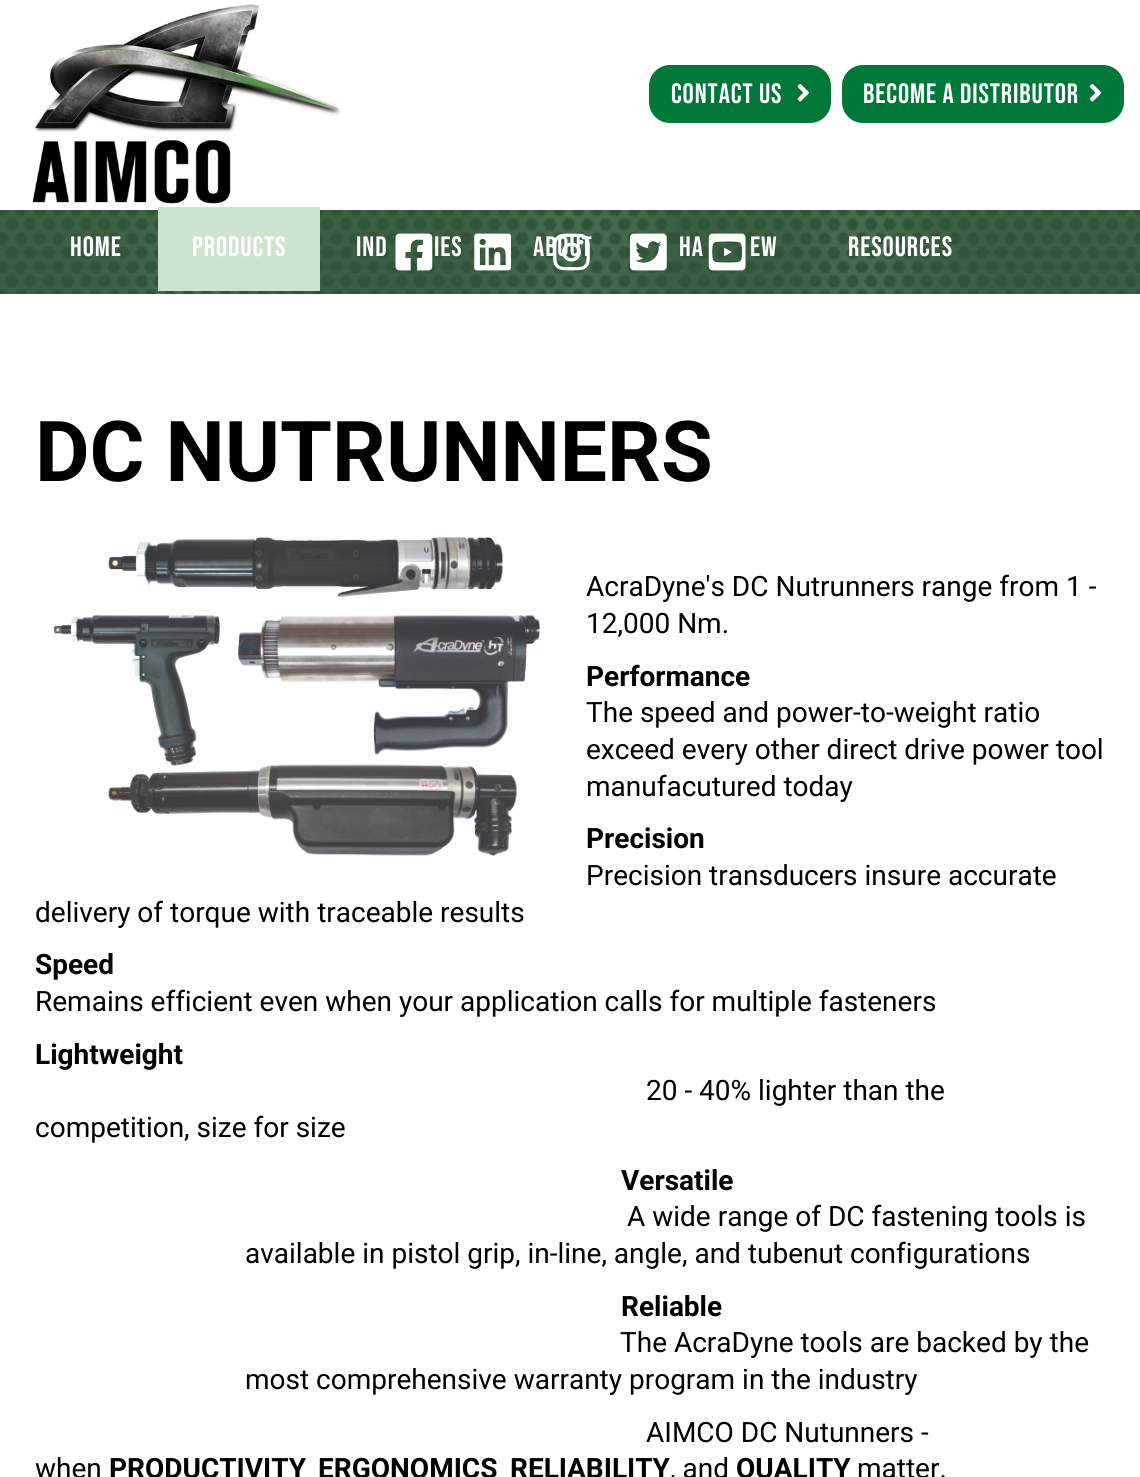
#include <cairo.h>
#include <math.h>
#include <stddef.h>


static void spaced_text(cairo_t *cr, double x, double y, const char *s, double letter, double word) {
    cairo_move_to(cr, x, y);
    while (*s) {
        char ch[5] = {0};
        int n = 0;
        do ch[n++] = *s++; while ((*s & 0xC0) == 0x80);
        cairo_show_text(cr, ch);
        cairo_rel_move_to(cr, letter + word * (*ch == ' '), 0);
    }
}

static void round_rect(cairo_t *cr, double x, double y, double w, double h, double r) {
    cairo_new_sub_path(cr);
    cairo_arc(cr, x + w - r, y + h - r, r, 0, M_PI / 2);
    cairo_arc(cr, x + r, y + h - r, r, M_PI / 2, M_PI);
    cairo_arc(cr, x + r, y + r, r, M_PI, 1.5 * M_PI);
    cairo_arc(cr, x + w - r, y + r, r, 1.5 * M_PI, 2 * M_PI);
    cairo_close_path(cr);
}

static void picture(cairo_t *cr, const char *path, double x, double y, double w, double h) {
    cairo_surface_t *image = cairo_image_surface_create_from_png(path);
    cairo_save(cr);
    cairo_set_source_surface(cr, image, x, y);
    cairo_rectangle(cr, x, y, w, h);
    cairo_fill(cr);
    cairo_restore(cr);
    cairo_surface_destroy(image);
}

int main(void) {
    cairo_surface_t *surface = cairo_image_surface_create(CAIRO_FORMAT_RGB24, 1140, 1477);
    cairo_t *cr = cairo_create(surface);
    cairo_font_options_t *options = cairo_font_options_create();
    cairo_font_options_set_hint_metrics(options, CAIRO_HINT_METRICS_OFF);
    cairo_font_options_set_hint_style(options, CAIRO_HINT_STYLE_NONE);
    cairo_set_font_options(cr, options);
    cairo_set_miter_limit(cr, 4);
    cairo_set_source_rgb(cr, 1, 1, 1);
    cairo_paint(cr);
    picture(cr, "img1.png", 32, 4, 309, 200);
    cairo_set_source_rgb(cr, 0, 0.471, 0.224);
    round_rect(cr, 649, 65, 182, 58, 21);
    cairo_fill(cr);
    cairo_select_font_face(cr, "Bebas Neue", CAIRO_FONT_SLANT_NORMAL, CAIRO_FONT_WEIGHT_NORMAL);
    cairo_set_font_size(cr, 28);
    cairo_set_source_rgb(cr, 1, 1, 1);
    spaced_text(cr, 671, 103, "CONTACT US", 0.9, 0);
    picture(cr, "img2.png", 797, 84, 12, 18);
    cairo_set_source_rgb(cr, 0, 0.471, 0.224);
    round_rect(cr, 842, 65, 282, 58, 21);
    cairo_fill(cr);
    cairo_set_source_rgb(cr, 1, 1, 1);
    spaced_text(cr, 863, 103, "Become a Distributor", 0.9, 0);
    picture(cr, "img3.png", 1089, 84, 13, 18);
    cairo_set_source_rgb(cr, 0.216, 0.376, 0.251);
    cairo_rectangle(cr, 0, 210, 1140, 84);
    cairo_fill(cr);
    picture(cr, "img4.png", 0, 210, 1140, 84);
    picture(cr, "img5.png", 395, 233, 38, 38);
    picture(cr, "img6.png", 474, 233, 37, 38);
    picture(cr, "img7.png", 553, 233, 37, 38);
    picture(cr, "img8.png", 630, 233, 37, 38);
    picture(cr, "img9.png", 708, 233, 38, 38);
    cairo_set_source_rgb(cr, 1, 1, 1);
    spaced_text(cr, 70, 256, "Home", 0.9, 0);
    cairo_set_source_rgb(cr, 0.804, 0.89, 0.808);
    cairo_rectangle(cr, 158, 207, 162, 84);
    cairo_fill(cr);
    cairo_set_source_rgb(cr, 1, 1, 1);
    spaced_text(cr, 192, 256, "PRODUCTS", 0.9, 0);
    spaced_text(cr, 356, 256, "IND", 0.9, 0);
    spaced_text(cr, 434, 256, "IES", 0.9, 0);
    spaced_text(cr, 533, 256, "ABOUT", 0.9, 0);
    spaced_text(cr, 679, 256, "HA", 0.9, 0);
    spaced_text(cr, 750, 256, "EW", 0.9, 0);
    spaced_text(cr, 848, 256, "RESOURCES", 0.9, 0);
    cairo_select_font_face(cr, "Roboto", CAIRO_FONT_SLANT_NORMAL, CAIRO_FONT_WEIGHT_BOLD);
    cairo_set_font_size(cr, 84);
    cairo_set_source_rgb(cr, 0, 0, 0);
    cairo_move_to(cr, 35, 481);
    cairo_show_text(cr, "DC NUTRUNNERS");
    picture(cr, "img10.png", 53, 537, 488, 320);
    cairo_select_font_face(cr, "Roboto", CAIRO_FONT_SLANT_NORMAL, CAIRO_FONT_WEIGHT_NORMAL);
    cairo_set_font_size(cr, 28);
    cairo_move_to(cr, 586, 596);
    cairo_show_text(cr, "AcraDyne's DC Nutrunners range from 1 -");
    cairo_move_to(cr, 586, 633);
    cairo_show_text(cr, "12,000 Nm.");
    cairo_select_font_face(cr, "Roboto", CAIRO_FONT_SLANT_NORMAL, CAIRO_FONT_WEIGHT_BOLD);
    cairo_move_to(cr, 586, 686);
    cairo_show_text(cr, "Performance");
    cairo_select_font_face(cr, "Roboto", CAIRO_FONT_SLANT_NORMAL, CAIRO_FONT_WEIGHT_NORMAL);
    cairo_move_to(cr, 586, 722);
    cairo_show_text(cr, "The speed and power-to-weight ratio");
    cairo_move_to(cr, 586, 759);
    cairo_show_text(cr, "exceed every other direct drive power tool");
    cairo_move_to(cr, 586, 796);
    cairo_show_text(cr, "manufacutured today");
    cairo_select_font_face(cr, "Roboto", CAIRO_FONT_SLANT_NORMAL, CAIRO_FONT_WEIGHT_BOLD);
    cairo_move_to(cr, 586, 848);
    cairo_show_text(cr, "Precision");
    cairo_select_font_face(cr, "Roboto", CAIRO_FONT_SLANT_NORMAL, CAIRO_FONT_WEIGHT_NORMAL);
    cairo_move_to(cr, 586, 885);
    cairo_show_text(cr, "Precision transducers insure accurate");
    cairo_move_to(cr, 35, 922);
    cairo_show_text(cr, "delivery of torque with traceable results");
    cairo_select_font_face(cr, "Roboto", CAIRO_FONT_SLANT_NORMAL, CAIRO_FONT_WEIGHT_BOLD);
    cairo_move_to(cr, 35, 974);
    cairo_show_text(cr, "Speed");
    cairo_select_font_face(cr, "Roboto", CAIRO_FONT_SLANT_NORMAL, CAIRO_FONT_WEIGHT_NORMAL);
    cairo_move_to(cr, 35, 1011);
    cairo_show_text(cr, "Remains efficient even when your application calls for multiple fasteners");
    cairo_select_font_face(cr, "Roboto", CAIRO_FONT_SLANT_NORMAL, CAIRO_FONT_WEIGHT_BOLD);
    cairo_move_to(cr, 35, 1064);
    cairo_show_text(cr, "Lightweight");
    cairo_select_font_face(cr, "Roboto", CAIRO_FONT_SLANT_NORMAL, CAIRO_FONT_WEIGHT_NORMAL);
    cairo_move_to(cr, 646, 1100);
    cairo_show_text(cr, "20 - 40% lighter than the");
    cairo_move_to(cr, 35, 1137);
    cairo_show_text(cr, "competition, size for size");
    cairo_select_font_face(cr, "Roboto", CAIRO_FONT_SLANT_NORMAL, CAIRO_FONT_WEIGHT_BOLD);
    cairo_move_to(cr, 621, 1190);
    cairo_show_text(cr, "Versatile");
    cairo_select_font_face(cr, "Roboto", CAIRO_FONT_SLANT_NORMAL, CAIRO_FONT_WEIGHT_NORMAL);
    cairo_move_to(cr, 627, 1226);
    cairo_show_text(cr, "A wide range of DC fastening tools is");
    cairo_move_to(cr, 245, 1263);
    cairo_show_text(cr, "available in pistol grip, in-line, angle, and tubenut configurations");
    cairo_select_font_face(cr, "Roboto", CAIRO_FONT_SLANT_NORMAL, CAIRO_FONT_WEIGHT_BOLD);
    cairo_move_to(cr, 621, 1316);
    cairo_show_text(cr, "Reliable");
    cairo_select_font_face(cr, "Roboto", CAIRO_FONT_SLANT_NORMAL, CAIRO_FONT_WEIGHT_NORMAL);
    cairo_move_to(cr, 620, 1352);
    cairo_show_text(cr, "The AcraDyne tools are backed by the");
    cairo_move_to(cr, 245, 1389);
    cairo_show_text(cr, "most comprehensive warranty program in the industry");
    cairo_move_to(cr, 646, 1442);
    cairo_show_text(cr, "AIMCO DC Nutunners -");
    cairo_move_to(cr, 35, 1478);
    cairo_show_text(cr, "when");
    cairo_select_font_face(cr, "Roboto", CAIRO_FONT_SLANT_NORMAL, CAIRO_FONT_WEIGHT_BOLD);
    cairo_move_to(cr, 109, 1478);
    cairo_show_text(cr, "PRODUCTIVITY");
    cairo_move_to(cr, 318, 1478);
    cairo_show_text(cr, "ERGONOMICS");
    cairo_move_to(cr, 510, 1478);
    cairo_show_text(cr, "RELIABILITY");
    cairo_select_font_face(cr, "Roboto", CAIRO_FONT_SLANT_NORMAL, CAIRO_FONT_WEIGHT_NORMAL);
    cairo_move_to(cr, 670, 1478);
    cairo_show_text(cr, ", and");
    cairo_select_font_face(cr, "Roboto", CAIRO_FONT_SLANT_NORMAL, CAIRO_FONT_WEIGHT_BOLD);
    cairo_move_to(cr, 736, 1478);
    cairo_show_text(cr, "QUALITY");
    cairo_select_font_face(cr, "Roboto", CAIRO_FONT_SLANT_NORMAL, CAIRO_FONT_WEIGHT_NORMAL);
    cairo_move_to(cr, 857, 1478);
    cairo_show_text(cr, "matter.");
    cairo_surface_write_to_png(surface, "page.png");
    cairo_font_options_destroy(options);
    cairo_destroy(cr);
    cairo_surface_destroy(surface);
    return 0;
}
